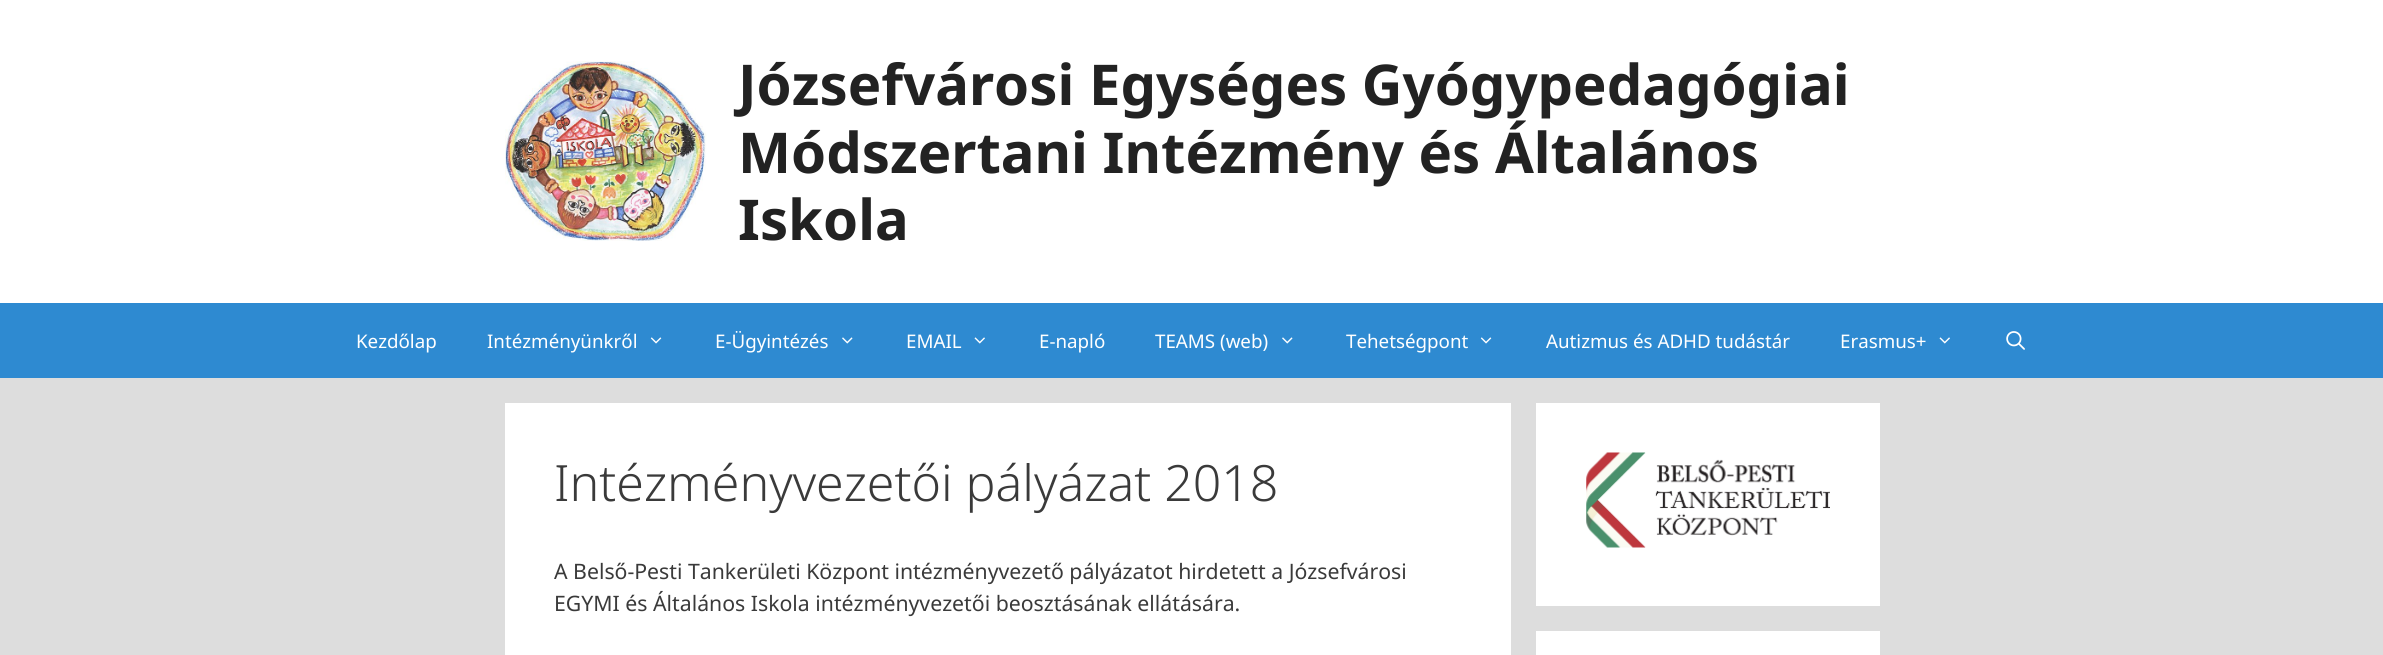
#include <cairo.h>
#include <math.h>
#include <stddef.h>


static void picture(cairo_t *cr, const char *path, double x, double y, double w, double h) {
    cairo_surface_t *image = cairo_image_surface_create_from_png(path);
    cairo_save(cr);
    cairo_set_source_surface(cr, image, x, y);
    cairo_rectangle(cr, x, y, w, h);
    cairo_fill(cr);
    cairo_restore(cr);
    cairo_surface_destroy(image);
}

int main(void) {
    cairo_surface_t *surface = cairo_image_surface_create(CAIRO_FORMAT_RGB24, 2383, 655);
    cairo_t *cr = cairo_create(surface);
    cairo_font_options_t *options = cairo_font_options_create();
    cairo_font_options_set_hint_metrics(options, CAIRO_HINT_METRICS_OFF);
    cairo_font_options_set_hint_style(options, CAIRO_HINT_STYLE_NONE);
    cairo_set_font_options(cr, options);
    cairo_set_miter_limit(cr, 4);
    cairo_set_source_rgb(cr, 0.867, 0.867, 0.867);
    cairo_paint(cr);
    cairo_set_source_rgb(cr, 1, 1, 1);
    cairo_rectangle(cr, 0, 0, 2383, 303);
    cairo_fill(cr);
    picture(cr, "img1.png", 505, 61, 202, 180);
    cairo_select_font_face(cr, "Noto Sans", CAIRO_FONT_SLANT_NORMAL, CAIRO_FONT_WEIGHT_BOLD);
    cairo_set_font_size(cr, 56.25);
    cairo_set_source_rgb(cr, 0.133, 0.133, 0.133);
    cairo_move_to(cr, 738, 105);
    cairo_show_text(cr, "Józsefvárosi Egységes Gyógypedagógiai");
    cairo_move_to(cr, 738, 173);
    cairo_show_text(cr, "Módszertani Intézmény és Általános");
    cairo_move_to(cr, 738, 240);
    cairo_show_text(cr, "Iskola");
    cairo_set_source_rgb(cr, 0.18, 0.541, 0.82);
    cairo_rectangle(cr, 0, 303, 2383, 75);
    cairo_fill(cr);
    cairo_select_font_face(cr, "Noto Sans", CAIRO_FONT_SLANT_NORMAL, CAIRO_FONT_WEIGHT_NORMAL);
    cairo_set_font_size(cr, 18.75);
    cairo_set_source_rgb(cr, 1, 1, 1);
    cairo_move_to(cr, 356, 348);
    cairo_show_text(cr, "Kezdőlap");
    cairo_move_to(cr, 487, 348);
    cairo_show_text(cr, "Intézményünkről");
    picture(cr, "img2.png", 650, 337, 12, 7);
    cairo_move_to(cr, 715, 348);
    cairo_show_text(cr, "E-Ügyintézés");
    picture(cr, "img3.png", 842, 337, 11, 7);
    cairo_move_to(cr, 906, 348);
    cairo_show_text(cr, "EMAIL");
    picture(cr, "img4.png", 974, 337, 11, 7);
    cairo_move_to(cr, 1039, 348);
    cairo_show_text(cr, "E-napló");
    cairo_move_to(cr, 1155, 348);
    cairo_show_text(cr, "TEAMS (web)");
    picture(cr, "img3.png", 1282, 337, 11, 7);
    cairo_move_to(cr, 1346, 348);
    cairo_show_text(cr, "Tehetségpont");
    picture(cr, "img2.png", 1480, 337, 12, 7);
    cairo_move_to(cr, 1546, 348);
    cairo_show_text(cr, "Autizmus és ADHD tudástár");
    cairo_move_to(cr, 1840, 348);
    cairo_show_text(cr, "Erasmus+");
    picture(cr, "img4.png", 1939, 337, 11, 7);
    picture(cr, "img5.png", 2006, 331, 19, 19);
    cairo_rectangle(cr, 505, 403, 1006, 252);
    cairo_fill(cr);
    cairo_select_font_face(cr, "Noto Sans Light", CAIRO_FONT_SLANT_NORMAL, CAIRO_FONT_WEIGHT_NORMAL);
    cairo_set_font_size(cr, 50);
    cairo_set_source_rgb(cr, 0.227, 0.227, 0.227);
    cairo_move_to(cr, 554, 501);
    cairo_show_text(cr, "Intézményvezetői pályázat 2018");
    cairo_select_font_face(cr, "Noto Sans", CAIRO_FONT_SLANT_NORMAL, CAIRO_FONT_WEIGHT_NORMAL);
    cairo_set_font_size(cr, 21.25);
    cairo_move_to(cr, 554, 579);
    cairo_show_text(cr, "A Belső-Pesti Tankerületi Központ intézményvezető pályázatot hirdetett a Józsefvárosi");
    cairo_move_to(cr, 554, 611);
    cairo_show_text(cr, "EGYMI és Általános Iskola intézményvezetői beosztásának ellátására.");
    cairo_set_source_rgb(cr, 1, 1, 1);
    cairo_rectangle(cr, 1536, 403, 344, 203);
    cairo_fill(cr);
    picture(cr, "img6.png", 1586, 452, 244, 96);
    cairo_rectangle(cr, 1536, 631, 344, 24);
    cairo_fill(cr);
    cairo_surface_write_to_png(surface, "page.png");
    cairo_font_options_destroy(options);
    cairo_destroy(cr);
    cairo_surface_destroy(surface);
    return 0;
}
